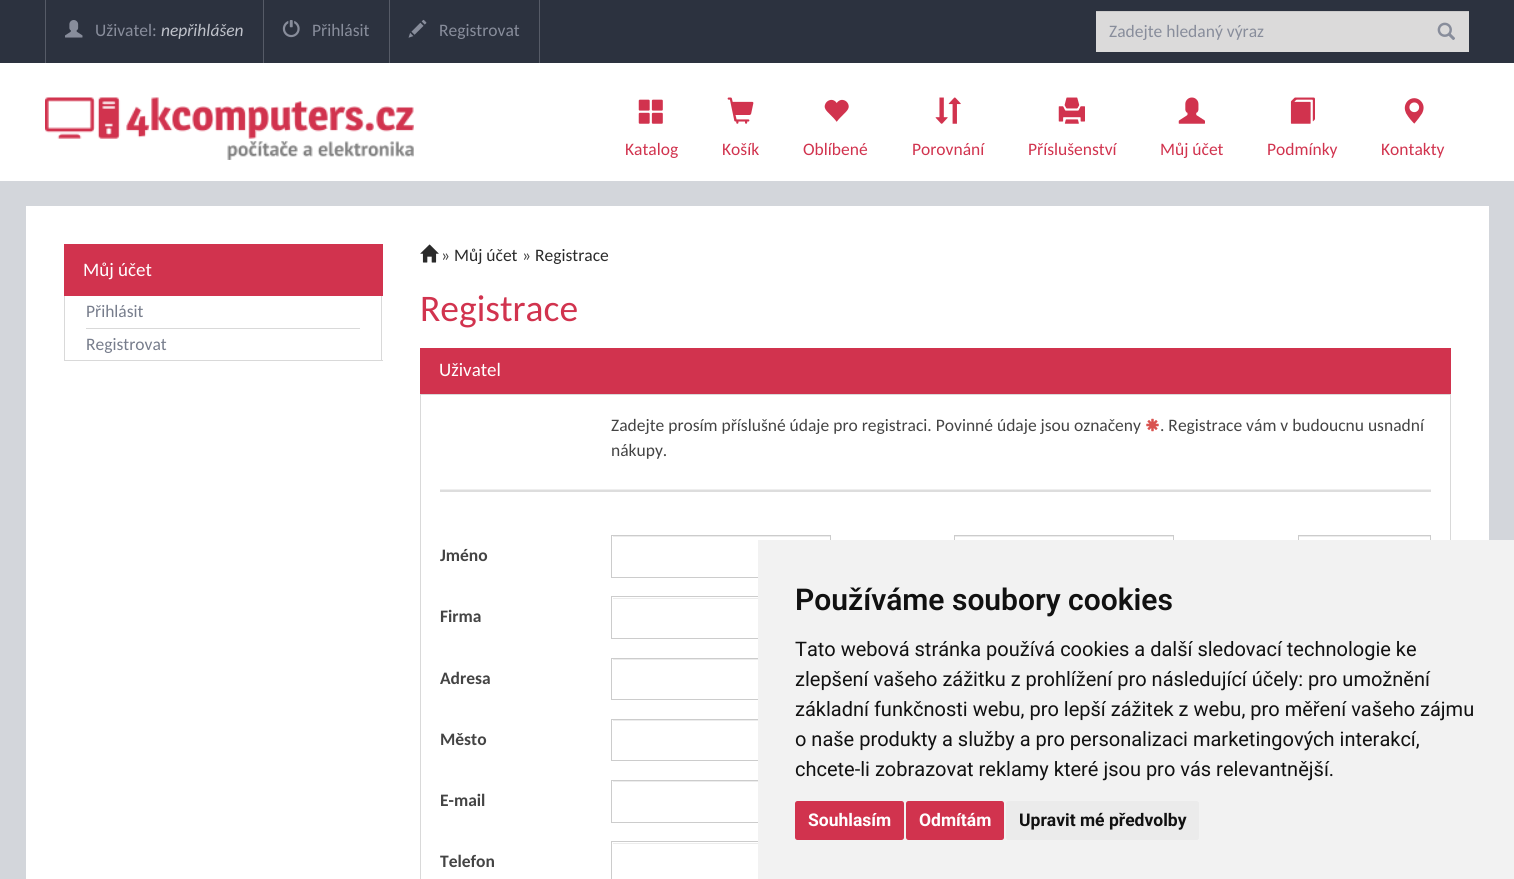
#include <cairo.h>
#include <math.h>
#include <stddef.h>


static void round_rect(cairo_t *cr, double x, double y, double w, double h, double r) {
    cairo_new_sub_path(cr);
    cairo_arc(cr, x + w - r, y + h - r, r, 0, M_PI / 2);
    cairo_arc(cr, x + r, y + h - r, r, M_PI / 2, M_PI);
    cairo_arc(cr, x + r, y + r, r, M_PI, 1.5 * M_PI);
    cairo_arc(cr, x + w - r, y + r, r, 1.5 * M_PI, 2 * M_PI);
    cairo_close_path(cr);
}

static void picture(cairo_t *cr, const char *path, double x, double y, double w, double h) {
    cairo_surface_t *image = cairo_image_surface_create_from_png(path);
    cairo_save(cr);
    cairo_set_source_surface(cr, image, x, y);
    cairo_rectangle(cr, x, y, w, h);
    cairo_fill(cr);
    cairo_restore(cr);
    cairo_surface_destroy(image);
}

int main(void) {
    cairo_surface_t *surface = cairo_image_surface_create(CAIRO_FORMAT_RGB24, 1514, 879);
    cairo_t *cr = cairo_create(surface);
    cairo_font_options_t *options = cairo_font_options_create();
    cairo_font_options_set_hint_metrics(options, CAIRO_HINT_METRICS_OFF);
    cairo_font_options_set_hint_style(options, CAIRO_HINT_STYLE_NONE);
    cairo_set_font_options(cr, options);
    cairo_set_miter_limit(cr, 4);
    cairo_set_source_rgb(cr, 0.827, 0.839, 0.859);
    cairo_paint(cr);
    cairo_set_source_rgb(cr, 0.173, 0.196, 0.247);
    cairo_rectangle(cr, 0, 0, 1514, 63);
    cairo_fill(cr);
    cairo_set_source_rgb(cr, 0.337, 0.357, 0.404);
    cairo_rectangle(cr, 45, 0, 1, 63);
    cairo_fill(cr);
    picture(cr, "img1.png", 65, 20, 18, 18);
    cairo_select_font_face(cr, "Carlito", CAIRO_FONT_SLANT_NORMAL, CAIRO_FONT_WEIGHT_NORMAL);
    cairo_set_font_size(cr, 17.5);
    cairo_set_source_rgb(cr, 0.533, 0.553, 0.608);
    cairo_move_to(cr, 95, 36);
    cairo_show_text(cr, "Uživatel:");
    cairo_select_font_face(cr, "Carlito", CAIRO_FONT_SLANT_ITALIC, CAIRO_FONT_WEIGHT_NORMAL);
    cairo_set_source_rgb(cr, 0.749, 0.761, 0.792);
    cairo_move_to(cr, 161, 36);
    cairo_show_text(cr, "nepřihlášen");
    cairo_set_source_rgb(cr, 0.337, 0.357, 0.404);
    cairo_rectangle(cr, 263, 0, 1, 63);
    cairo_fill(cr);
    picture(cr, "img2.png", 282, 20, 18, 18);
    cairo_select_font_face(cr, "Carlito", CAIRO_FONT_SLANT_NORMAL, CAIRO_FONT_WEIGHT_NORMAL);
    cairo_set_source_rgb(cr, 0.533, 0.553, 0.608);
    cairo_move_to(cr, 312, 36);
    cairo_show_text(cr, "Přihlásit");
    cairo_set_source_rgb(cr, 0.337, 0.357, 0.404);
    cairo_rectangle(cr, 539, 0, 1, 63);
    cairo_fill(cr);
    cairo_rectangle(cr, 389, 0, 1, 63);
    cairo_fill(cr);
    picture(cr, "img3.png", 408, 19, 19, 19);
    cairo_set_source_rgb(cr, 0.533, 0.553, 0.608);
    cairo_move_to(cr, 439, 36);
    cairo_show_text(cr, "Registrovat");
    cairo_set_source_rgb(cr, 0.859, 0.855, 0.855);
    cairo_rectangle(cr, 1096, 12, 373, 40);
    cairo_fill(cr);
    cairo_set_source_rgb(cr, 0.796, 0.792, 0.792);
    cairo_rectangle(cr, 1096, 11, 373, 1);
    cairo_fill(cr);
    cairo_set_source_rgb(cr, 0.533, 0.553, 0.608);
    cairo_move_to(cr, 1109, 37);
    cairo_show_text(cr, "Zadejte hledaný výraz");
    picture(cr, "img4.png", 1437, 22, 18, 18);
    cairo_set_source_rgb(cr, 1, 1, 1);
    cairo_rectangle(cr, 0, 63, 1514, 118);
    cairo_fill(cr);
    picture(cr, "img5.png", 45, 97, 369, 63);
    picture(cr, "img6.png", 638, 99, 25, 25);
    cairo_set_source_rgb(cr, 0.82, 0.2, 0.306);
    cairo_move_to(cr, 625, 155);
    cairo_show_text(cr, "Katalog");
    picture(cr, "img7.png", 727, 97, 27, 27);
    cairo_move_to(cr, 722, 155);
    cairo_show_text(cr, "Košík");
    picture(cr, "img8.png", 824, 99, 25, 23);
    cairo_move_to(cr, 803, 155);
    cairo_show_text(cr, "Oblíbené");
    picture(cr, "img9.png", 935, 97, 26, 27);
    cairo_move_to(cr, 912, 155);
    cairo_show_text(cr, "Porovnání");
    picture(cr, "img10.png", 1058, 97, 27, 27);
    cairo_move_to(cr, 1028, 155);
    cairo_show_text(cr, "Příslušenství");
    picture(cr, "img11.png", 1178, 97, 27, 27);
    cairo_move_to(cr, 1160, 155);
    cairo_show_text(cr, "Můj účet");
    picture(cr, "img12.png", 1290, 97, 25, 27);
    cairo_move_to(cr, 1267, 155);
    cairo_show_text(cr, "Podmínky");
    picture(cr, "img13.png", 1404, 98, 20, 26);
    cairo_move_to(cr, 1381, 155);
    cairo_show_text(cr, "Kontakty");
    cairo_set_source_rgb(cr, 1, 1, 1);
    cairo_rectangle(cr, 26, 206, 1463, 673);
    cairo_fill(cr);
    cairo_set_source_rgb(cr, 0.82, 0.2, 0.306);
    cairo_rectangle(cr, 64, 244, 319, 52);
    cairo_fill(cr);
    cairo_set_font_size(cr, 19);
    cairo_set_source_rgb(cr, 1, 1, 1);
    cairo_move_to(cr, 83, 276);
    cairo_show_text(cr, "Můj účet");
    cairo_set_source_rgb(cr, 0.851, 0.851, 0.851);
    cairo_rectangle(cr, 381, 296, 1, 65);
    cairo_fill(cr);
    cairo_rectangle(cr, 64, 360, 319, 1);
    cairo_fill(cr);
    cairo_rectangle(cr, 64, 296, 1, 65);
    cairo_fill(cr);
    cairo_rectangle(cr, 86, 328, 274, 1);
    cairo_fill(cr);
    cairo_set_font_size(cr, 17.5);
    cairo_set_source_rgb(cr, 0.467, 0.49, 0.549);
    cairo_move_to(cr, 86, 317);
    cairo_show_text(cr, "Přihlásit");
    cairo_move_to(cr, 86, 350);
    cairo_show_text(cr, "Registrovat");
    picture(cr, "img14.png", 420, 244, 19, 19);
    cairo_set_source_rgb(cr, 0.267, 0.267, 0.267);
    cairo_move_to(cr, 441, 261);
    cairo_show_text(cr, "»");
    cairo_set_source_rgb(cr, 0.165, 0.165, 0.165);
    cairo_move_to(cr, 454, 261);
    cairo_show_text(cr, "Můj účet");
    cairo_set_source_rgb(cr, 0.267, 0.267, 0.267);
    cairo_move_to(cr, 522, 261);
    cairo_show_text(cr, "»");
    cairo_set_source_rgb(cr, 0.165, 0.165, 0.165);
    cairo_move_to(cr, 535, 261);
    cairo_show_text(cr, "Registrace");
    cairo_set_font_size(cr, 37.5);
    cairo_set_source_rgb(cr, 0.82, 0.2, 0.306);
    cairo_move_to(cr, 420, 321);
    cairo_show_text(cr, "Registrace");
    cairo_rectangle(cr, 420, 348, 1031, 46);
    cairo_fill(cr);
    cairo_set_font_size(cr, 19);
    cairo_set_source_rgb(cr, 1, 1, 1);
    cairo_move_to(cr, 439, 376);
    cairo_show_text(cr, "Uživatel");
    cairo_rectangle(cr, 420.5, 394.5, 1030, 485);
    cairo_set_source_rgb(cr, 0.851, 0.851, 0.851);
    cairo_set_line_width(cr, 1);
    cairo_stroke(cr);
    cairo_set_font_size(cr, 17.5);
    cairo_set_source_rgb(cr, 0.267, 0.267, 0.267);
    cairo_move_to(cr, 611, 431);
    cairo_show_text(cr, "Zadejte prosím příslušné údaje pro registraci. Povinné údaje jsou označeny");
    picture(cr, "img15.png", 1146, 418, 13, 14);
    cairo_move_to(cr, 1160, 431);
    cairo_show_text(cr, ". Registrace vám v budoucnu usnadní");
    cairo_move_to(cr, 611, 456);
    cairo_show_text(cr, "nákupy.");
    cairo_set_source_rgb(cr, 0.867, 0.867, 0.867);
    cairo_rectangle(cr, 440, 490, 991, 2);
    cairo_fill(cr);
    cairo_set_source_rgb(cr, 0.933, 0.933, 0.933);
    cairo_rectangle(cr, 440, 489, 991, 1);
    cairo_fill(cr);
    cairo_select_font_face(cr, "Carlito", CAIRO_FONT_SLANT_NORMAL, CAIRO_FONT_WEIGHT_BOLD);
    cairo_set_source_rgb(cr, 0.267, 0.267, 0.267);
    cairo_move_to(cr, 440, 561);
    cairo_show_text(cr, "Jméno");
    cairo_set_source_rgb(cr, 0.925, 0.925, 0.925);
    cairo_rectangle(cr, 613, 536, 217, 1);
    cairo_fill(cr);
    cairo_rectangle(cr, 611.5, 535.5, 219, 42);
    cairo_set_source_rgb(cr, 0.8, 0.8, 0.8);
    cairo_stroke(cr);
    cairo_set_source_rgb(cr, 0.925, 0.925, 0.925);
    cairo_rectangle(cr, 955, 536, 218, 1);
    cairo_fill(cr);
    cairo_rectangle(cr, 954.5, 535.5, 219, 42);
    cairo_set_source_rgb(cr, 0.8, 0.8, 0.8);
    cairo_stroke(cr);
    cairo_set_source_rgb(cr, 0.925, 0.925, 0.925);
    cairo_rectangle(cr, 1299, 536, 131, 1);
    cairo_fill(cr);
    cairo_rectangle(cr, 1298.5, 535.5, 132, 42);
    cairo_set_source_rgb(cr, 0.8, 0.8, 0.8);
    cairo_stroke(cr);
    cairo_set_source_rgb(cr, 0.267, 0.267, 0.267);
    cairo_move_to(cr, 440, 622);
    cairo_show_text(cr, "Firma");
    cairo_set_source_rgb(cr, 0.925, 0.925, 0.925);
    cairo_rectangle(cr, 613, 598, 145, 1);
    cairo_fill(cr);
    cairo_rectangle(cr, 611.5, 596.5, 819, 42);
    cairo_set_source_rgb(cr, 0.8, 0.8, 0.8);
    cairo_stroke(cr);
    cairo_set_source_rgb(cr, 0.267, 0.267, 0.267);
    cairo_move_to(cr, 440, 684);
    cairo_show_text(cr, "Adresa");
    cairo_set_source_rgb(cr, 0.925, 0.925, 0.925);
    cairo_rectangle(cr, 613, 659, 145, 1);
    cairo_fill(cr);
    cairo_rectangle(cr, 611.5, 658.5, 819, 41);
    cairo_set_source_rgb(cr, 0.8, 0.8, 0.8);
    cairo_stroke(cr);
    cairo_set_source_rgb(cr, 0.267, 0.267, 0.267);
    cairo_move_to(cr, 440, 745);
    cairo_show_text(cr, "Město");
    cairo_set_source_rgb(cr, 0.925, 0.925, 0.925);
    cairo_rectangle(cr, 613, 720, 145, 1);
    cairo_fill(cr);
    cairo_rectangle(cr, 611.5, 719.5, 391, 41);
    cairo_set_source_rgb(cr, 0.8, 0.8, 0.8);
    cairo_stroke(cr);
    cairo_set_source_rgb(cr, 0.267, 0.267, 0.267);
    cairo_move_to(cr, 440, 806);
    cairo_show_text(cr, "E-mail");
    cairo_set_source_rgb(cr, 0.925, 0.925, 0.925);
    cairo_rectangle(cr, 613, 781, 145, 1);
    cairo_fill(cr);
    cairo_rectangle(cr, 611.5, 780.5, 819, 42);
    cairo_set_source_rgb(cr, 0.8, 0.8, 0.8);
    cairo_stroke(cr);
    cairo_set_source_rgb(cr, 0.267, 0.267, 0.267);
    cairo_move_to(cr, 440, 867);
    cairo_show_text(cr, "Telefon");
    cairo_set_source_rgb(cr, 0.925, 0.925, 0.925);
    cairo_rectangle(cr, 613, 843, 145, 1);
    cairo_fill(cr);
    cairo_rectangle(cr, 611.5, 841.5, 391, 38);
    cairo_set_source_rgb(cr, 0.8, 0.8, 0.8);
    cairo_stroke(cr);
    cairo_set_source_rgb(cr, 0.949, 0.949, 0.949);
    cairo_rectangle(cr, 758, 540, 756, 339);
    cairo_fill(cr);
    cairo_select_font_face(cr, "Roboto SemiBold", CAIRO_FONT_SLANT_NORMAL, CAIRO_FONT_WEIGHT_NORMAL);
    cairo_set_font_size(cr, 30);
    cairo_set_source_rgb(cr, 0.067, 0.067, 0.067);
    cairo_move_to(cr, 795, 610);
    cairo_show_text(cr, "Používáme soubory cookies");
    cairo_select_font_face(cr, "Roboto", CAIRO_FONT_SLANT_NORMAL, CAIRO_FONT_WEIGHT_NORMAL);
    cairo_set_font_size(cr, 20);
    cairo_move_to(cr, 795, 656);
    cairo_show_text(cr, "Tato webová stránka používá cookies a další sledovací technologie ke");
    cairo_move_to(cr, 795, 686);
    cairo_show_text(cr, "zlepšení vašeho zážitku z prohlížení pro následující účely: pro umožnění");
    cairo_move_to(cr, 795, 716);
    cairo_show_text(cr, "základní funkčnosti webu, pro lepší zážitek z webu, pro měření vašeho zájmu");
    cairo_move_to(cr, 795, 746);
    cairo_show_text(cr, "o naše produkty a služby a pro personalizaci marketingových interakcí,");
    cairo_move_to(cr, 795, 776);
    cairo_show_text(cr, "chcete-li zobrazovat reklamy které jsou pro vás relevantnější.");
    cairo_set_source_rgb(cr, 0.82, 0.2, 0.306);
    round_rect(cr, 795, 801, 109, 39, 2.5);
    cairo_fill(cr);
    cairo_select_font_face(cr, "Roboto", CAIRO_FONT_SLANT_NORMAL, CAIRO_FONT_WEIGHT_BOLD);
    cairo_set_font_size(cr, 17.5);
    cairo_set_source_rgb(cr, 1, 1, 1);
    cairo_move_to(cr, 808, 826);
    cairo_show_text(cr, "Souhlasím");
    cairo_set_source_rgb(cr, 0.82, 0.2, 0.306);
    round_rect(cr, 906, 801, 98, 39, 2.5);
    cairo_fill(cr);
    cairo_set_source_rgb(cr, 1, 1, 1);
    cairo_move_to(cr, 919, 826);
    cairo_show_text(cr, "Odmítám");
    cairo_set_source_rgb(cr, 0.918, 0.918, 0.918);
    round_rect(cr, 1006, 801, 193, 39, 2.5);
    cairo_fill(cr);
    cairo_set_source_rgb(cr, 0.067, 0.067, 0.067);
    cairo_move_to(cr, 1019, 826);
    cairo_show_text(cr, "Upravit mé předvolby");
    cairo_surface_write_to_png(surface, "page.png");
    cairo_font_options_destroy(options);
    cairo_destroy(cr);
    cairo_surface_destroy(surface);
    return 0;
}
